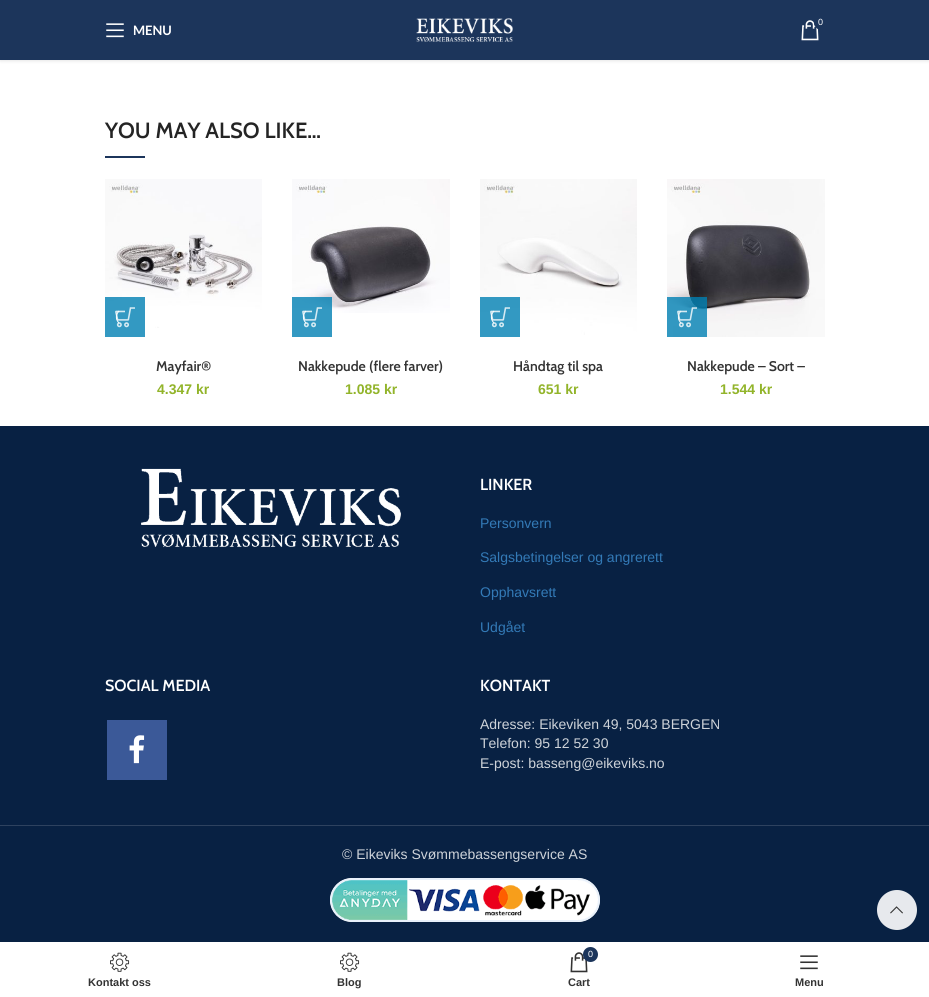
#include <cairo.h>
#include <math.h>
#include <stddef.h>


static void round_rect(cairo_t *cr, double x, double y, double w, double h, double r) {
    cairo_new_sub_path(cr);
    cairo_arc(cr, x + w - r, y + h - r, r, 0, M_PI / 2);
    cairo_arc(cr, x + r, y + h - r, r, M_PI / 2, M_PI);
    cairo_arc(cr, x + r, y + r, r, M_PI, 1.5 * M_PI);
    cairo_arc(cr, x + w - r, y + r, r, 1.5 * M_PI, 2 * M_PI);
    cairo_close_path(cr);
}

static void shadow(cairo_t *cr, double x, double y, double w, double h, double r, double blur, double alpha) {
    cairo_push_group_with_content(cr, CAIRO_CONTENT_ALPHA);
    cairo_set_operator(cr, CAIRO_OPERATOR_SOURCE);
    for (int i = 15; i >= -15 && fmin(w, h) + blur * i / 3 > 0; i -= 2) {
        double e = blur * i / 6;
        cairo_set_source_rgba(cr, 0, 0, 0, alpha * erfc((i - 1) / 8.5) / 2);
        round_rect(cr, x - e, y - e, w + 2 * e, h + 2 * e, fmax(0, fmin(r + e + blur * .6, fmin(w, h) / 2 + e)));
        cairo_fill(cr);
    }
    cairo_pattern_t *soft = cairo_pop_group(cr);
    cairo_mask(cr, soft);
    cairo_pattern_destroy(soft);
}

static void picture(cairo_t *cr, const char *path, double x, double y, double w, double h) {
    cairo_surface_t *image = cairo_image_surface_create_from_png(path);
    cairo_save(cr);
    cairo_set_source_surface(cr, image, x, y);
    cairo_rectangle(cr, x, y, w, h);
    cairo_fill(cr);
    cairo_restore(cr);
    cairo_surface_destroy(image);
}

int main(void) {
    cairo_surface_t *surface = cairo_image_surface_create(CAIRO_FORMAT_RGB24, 929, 997);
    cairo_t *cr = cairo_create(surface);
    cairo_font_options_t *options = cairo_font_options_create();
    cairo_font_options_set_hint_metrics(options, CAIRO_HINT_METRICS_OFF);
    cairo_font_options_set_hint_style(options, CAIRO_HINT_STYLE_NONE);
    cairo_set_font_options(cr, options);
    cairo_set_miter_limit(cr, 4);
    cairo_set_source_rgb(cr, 1, 1, 1);
    cairo_paint(cr);
    cairo_set_source_rgb(cr, 0, 0, 0);
    shadow(cr, 0, 1, 929, 60, 0, 1.5, 0.1);
    cairo_set_source_rgb(cr, 0.11, 0.208, 0.357);
    cairo_rectangle(cr, 0, 0, 929, 60);
    cairo_fill(cr);
    picture(cr, "img1.png", 416, 18, 97, 24);
    picture(cr, "img2.png", 801, 20, 18, 21);
    cairo_arc(cr, 821.5, 22.5, 7.5, 0, 2 * M_PI);
    cairo_fill(cr);
    cairo_select_font_face(cr, "Liberation Sans", CAIRO_FONT_SLANT_NORMAL, CAIRO_FONT_WEIGHT_NORMAL);
    cairo_set_font_size(cr, 9);
    cairo_set_source_rgb(cr, 1, 1, 1);
    cairo_move_to(cr, 818, 25);
    cairo_show_text(cr, "0");
    picture(cr, "img3.png", 106, 23, 18, 15);
    cairo_select_font_face(cr, "Lato", CAIRO_FONT_SLANT_NORMAL, CAIRO_FONT_WEIGHT_BOLD);
    cairo_set_font_size(cr, 13);
    cairo_move_to(cr, 133, 35);
    cairo_show_text(cr, "MENU");
    cairo_select_font_face(cr, "Cabin SemiBold", CAIRO_FONT_SLANT_NORMAL, CAIRO_FONT_WEIGHT_NORMAL);
    cairo_set_font_size(cr, 22);
    cairo_set_source_rgb(cr, 0.141, 0.141, 0.141);
    cairo_move_to(cr, 105, 138);
    cairo_show_text(cr, "YOU MAY ALSO LIKE…");
    cairo_set_source_rgb(cr, 0.11, 0.208, 0.357);
    cairo_rectangle(cr, 105, 156, 40, 2);
    cairo_fill(cr);
    picture(cr, "img4.png", 105, 179, 157, 149);
    cairo_set_source_rgba(cr, 0, 0.502, 0.702, 0.8);
    cairo_rectangle(cr, 105, 297, 40, 40);
    cairo_fill(cr);
    picture(cr, "img5.png", 115, 307, 20, 21);
    cairo_new_path(cr);
    cairo_move_to(cr, 119, 323);
    cairo_curve_to(cr, 115.5, 319.5, 115.5, 314.5, 119, 311);
    cairo_set_source_rgb(cr, 1, 1, 1);
    cairo_set_line_width(cr, 1);
    cairo_stroke(cr);
    cairo_set_font_size(cr, 14);
    cairo_set_source_rgb(cr, 0.2, 0.2, 0.2);
    cairo_move_to(cr, 156, 371);
    cairo_show_text(cr, "Mayfair®");
    cairo_select_font_face(cr, "Liberation Sans", CAIRO_FONT_SLANT_NORMAL, CAIRO_FONT_WEIGHT_BOLD);
    cairo_set_source_rgb(cr, 0.573, 0.706, 0.165);
    cairo_move_to(cr, 157, 394);
    cairo_show_text(cr, "4.347 kr");
    picture(cr, "img6.png", 292, 179, 158, 134);
    cairo_set_source_rgba(cr, 0, 0.502, 0.702, 0.8);
    cairo_rectangle(cr, 292, 297, 40, 40);
    cairo_fill(cr);
    picture(cr, "img7.png", 302, 307, 20, 21);
    cairo_new_path(cr);
    cairo_move_to(cr, 306, 323);
    cairo_curve_to(cr, 302.5, 319.5, 302.5, 314.5, 306, 311);
    cairo_set_source_rgb(cr, 1, 1, 1);
    cairo_stroke(cr);
    cairo_select_font_face(cr, "Cabin SemiBold", CAIRO_FONT_SLANT_NORMAL, CAIRO_FONT_WEIGHT_NORMAL);
    cairo_set_source_rgb(cr, 0.2, 0.2, 0.2);
    cairo_move_to(cr, 298, 371);
    cairo_show_text(cr, "Nakkepude (flere farver)");
    cairo_select_font_face(cr, "Liberation Sans", CAIRO_FONT_SLANT_NORMAL, CAIRO_FONT_WEIGHT_BOLD);
    cairo_set_source_rgb(cr, 0.573, 0.706, 0.165);
    cairo_move_to(cr, 345, 394);
    cairo_show_text(cr, "1.085 kr");
    picture(cr, "img8.png", 480, 179, 157, 156);
    cairo_set_source_rgba(cr, 0, 0.502, 0.702, 0.8);
    cairo_rectangle(cr, 480, 297, 40, 40);
    cairo_fill(cr);
    picture(cr, "img9.png", 490, 307, 20, 21);
    cairo_new_path(cr);
    cairo_move_to(cr, 494, 323);
    cairo_curve_to(cr, 490.5, 319.5, 490.5, 314.5, 494, 311);
    cairo_set_source_rgb(cr, 0.996, 0.996, 0.996);
    cairo_stroke(cr);
    cairo_select_font_face(cr, "Cabin SemiBold", CAIRO_FONT_SLANT_NORMAL, CAIRO_FONT_WEIGHT_NORMAL);
    cairo_set_source_rgb(cr, 0.2, 0.2, 0.2);
    cairo_move_to(cr, 513, 371);
    cairo_show_text(cr, "Håndtag til spa");
    cairo_select_font_face(cr, "Liberation Sans", CAIRO_FONT_SLANT_NORMAL, CAIRO_FONT_WEIGHT_BOLD);
    cairo_set_source_rgb(cr, 0.573, 0.706, 0.165);
    cairo_move_to(cr, 538, 394);
    cairo_show_text(cr, "651 kr");
    picture(cr, "img10.png", 667, 179, 158, 158);
    cairo_set_source_rgba(cr, 0, 0.502, 0.702, 0.8);
    cairo_rectangle(cr, 667, 297, 40, 40);
    cairo_fill(cr);
    picture(cr, "img11.png", 677, 307, 20, 21);
    cairo_new_path(cr);
    cairo_move_to(cr, 681, 323);
    cairo_curve_to(cr, 677.5, 319.5, 677.5, 314.5, 681, 311);
    cairo_set_source_rgb(cr, 0.969, 0.969, 0.969);
    cairo_stroke(cr);
    cairo_select_font_face(cr, "Cabin SemiBold", CAIRO_FONT_SLANT_NORMAL, CAIRO_FONT_WEIGHT_NORMAL);
    cairo_set_source_rgb(cr, 0.2, 0.2, 0.2);
    cairo_move_to(cr, 687, 371);
    cairo_show_text(cr, "Nakkepude – Sort –");
    cairo_select_font_face(cr, "Liberation Sans", CAIRO_FONT_SLANT_NORMAL, CAIRO_FONT_WEIGHT_BOLD);
    cairo_set_source_rgb(cr, 0.573, 0.706, 0.165);
    cairo_move_to(cr, 720, 394);
    cairo_show_text(cr, "1.544 kr");
    cairo_set_source_rgb(cr, 0.035, 0.129, 0.263);
    cairo_rectangle(cr, 0, 426, 929, 516);
    cairo_fill(cr);
    picture(cr, "img12.png", 141, 468, 260, 80);
    cairo_select_font_face(cr, "Cabin SemiBold", CAIRO_FONT_SLANT_NORMAL, CAIRO_FONT_WEIGHT_NORMAL);
    cairo_set_font_size(cr, 16);
    cairo_set_source_rgb(cr, 1, 1, 1);
    cairo_move_to(cr, 480, 490);
    cairo_show_text(cr, "LINKER");
    cairo_select_font_face(cr, "Liberation Sans", CAIRO_FONT_SLANT_NORMAL, CAIRO_FONT_WEIGHT_NORMAL);
    cairo_set_font_size(cr, 14);
    cairo_set_source_rgb(cr, 0.2, 0.478, 0.718);
    cairo_move_to(cr, 480, 528);
    cairo_show_text(cr, "Personvern");
    cairo_move_to(cr, 480, 562);
    cairo_show_text(cr, "Salgsbetingelser og angrerett");
    cairo_move_to(cr, 480, 597);
    cairo_show_text(cr, "Opphavsrett");
    cairo_move_to(cr, 480, 632);
    cairo_show_text(cr, "Udgået");
    cairo_select_font_face(cr, "Cabin SemiBold", CAIRO_FONT_SLANT_NORMAL, CAIRO_FONT_WEIGHT_NORMAL);
    cairo_set_font_size(cr, 16);
    cairo_set_source_rgb(cr, 1, 1, 1);
    cairo_move_to(cr, 105, 691);
    cairo_show_text(cr, "SOCIAL MEDIA");
    cairo_set_source_rgb(cr, 0.231, 0.349, 0.596);
    cairo_rectangle(cr, 107, 720, 60, 60);
    cairo_fill(cr);
    picture(cr, "img13.png", 129, 735, 16, 29);
    cairo_set_source_rgb(cr, 1, 1, 1);
    cairo_move_to(cr, 480, 691);
    cairo_show_text(cr, "KONTAKT");
    cairo_select_font_face(cr, "Liberation Sans", CAIRO_FONT_SLANT_NORMAL, CAIRO_FONT_WEIGHT_NORMAL);
    cairo_set_font_size(cr, 14);
    cairo_set_source_rgb(cr, 0.808, 0.827, 0.851);
    cairo_move_to(cr, 480, 729);
    cairo_show_text(cr, "Adresse: Eikeviken 49, 5043 BERGEN");
    cairo_move_to(cr, 480, 748);
    cairo_show_text(cr, "Telefon: 95 12 52 30");
    cairo_move_to(cr, 480, 768);
    cairo_show_text(cr, "E-post: basseng@eikeviks.no");
    cairo_set_source_rgb(cr, 0.18, 0.259, 0.373);
    cairo_rectangle(cr, 0, 825, 929, 1);
    cairo_fill(cr);
    cairo_set_source_rgb(cr, 0.808, 0.827, 0.851);
    cairo_move_to(cr, 342, 859);
    cairo_show_text(cr, "© Eikeviks Svømmebassengservice AS");
    cairo_set_source_rgb(cr, 1, 1, 1);
    round_rect(cr, 330, 878, 270, 44, 22);
    cairo_fill(cr);
    picture(cr, "img14.png", 330, 878, 270, 44);
    cairo_set_source_rgba(cr, 1, 1, 1, 0.9);
    cairo_arc(cr, 897, 910, 20, 0, 2 * M_PI);
    cairo_fill(cr);
    picture(cr, "img15.png", 890, 906, 13, 8);
    picture(cr, "img16.png", 110, 952, 20, 20);
    cairo_select_font_face(cr, "Liberation Sans", CAIRO_FONT_SLANT_NORMAL, CAIRO_FONT_WEIGHT_BOLD);
    cairo_set_font_size(cr, 11);
    cairo_set_source_rgb(cr, 0.2, 0.2, 0.2);
    cairo_move_to(cr, 88, 986);
    cairo_show_text(cr, "Kontakt oss");
    picture(cr, "img16.png", 340, 952, 20, 20);
    cairo_move_to(cr, 337, 986);
    cairo_show_text(cr, "Blog");
    picture(cr, "img17.png", 570, 952, 18, 21);
    cairo_set_source_rgb(cr, 0.11, 0.208, 0.357);
    cairo_arc(cr, 590.5, 954.5, 7.5, 0, 2 * M_PI);
    cairo_fill(cr);
    cairo_select_font_face(cr, "Liberation Sans", CAIRO_FONT_SLANT_NORMAL, CAIRO_FONT_WEIGHT_NORMAL);
    cairo_set_font_size(cr, 9);
    cairo_set_source_rgb(cr, 1, 1, 1);
    cairo_move_to(cr, 588, 957);
    cairo_show_text(cr, "0");
    cairo_select_font_face(cr, "Liberation Sans", CAIRO_FONT_SLANT_NORMAL, CAIRO_FONT_WEIGHT_BOLD);
    cairo_set_font_size(cr, 11);
    cairo_set_source_rgb(cr, 0.2, 0.2, 0.2);
    cairo_move_to(cr, 568, 986);
    cairo_show_text(cr, "Cart");
    picture(cr, "img18.png", 800, 955, 18, 15);
    cairo_move_to(cr, 795, 986);
    cairo_show_text(cr, "Menu");
    cairo_surface_write_to_png(surface, "page.png");
    cairo_font_options_destroy(options);
    cairo_destroy(cr);
    cairo_surface_destroy(surface);
    return 0;
}
